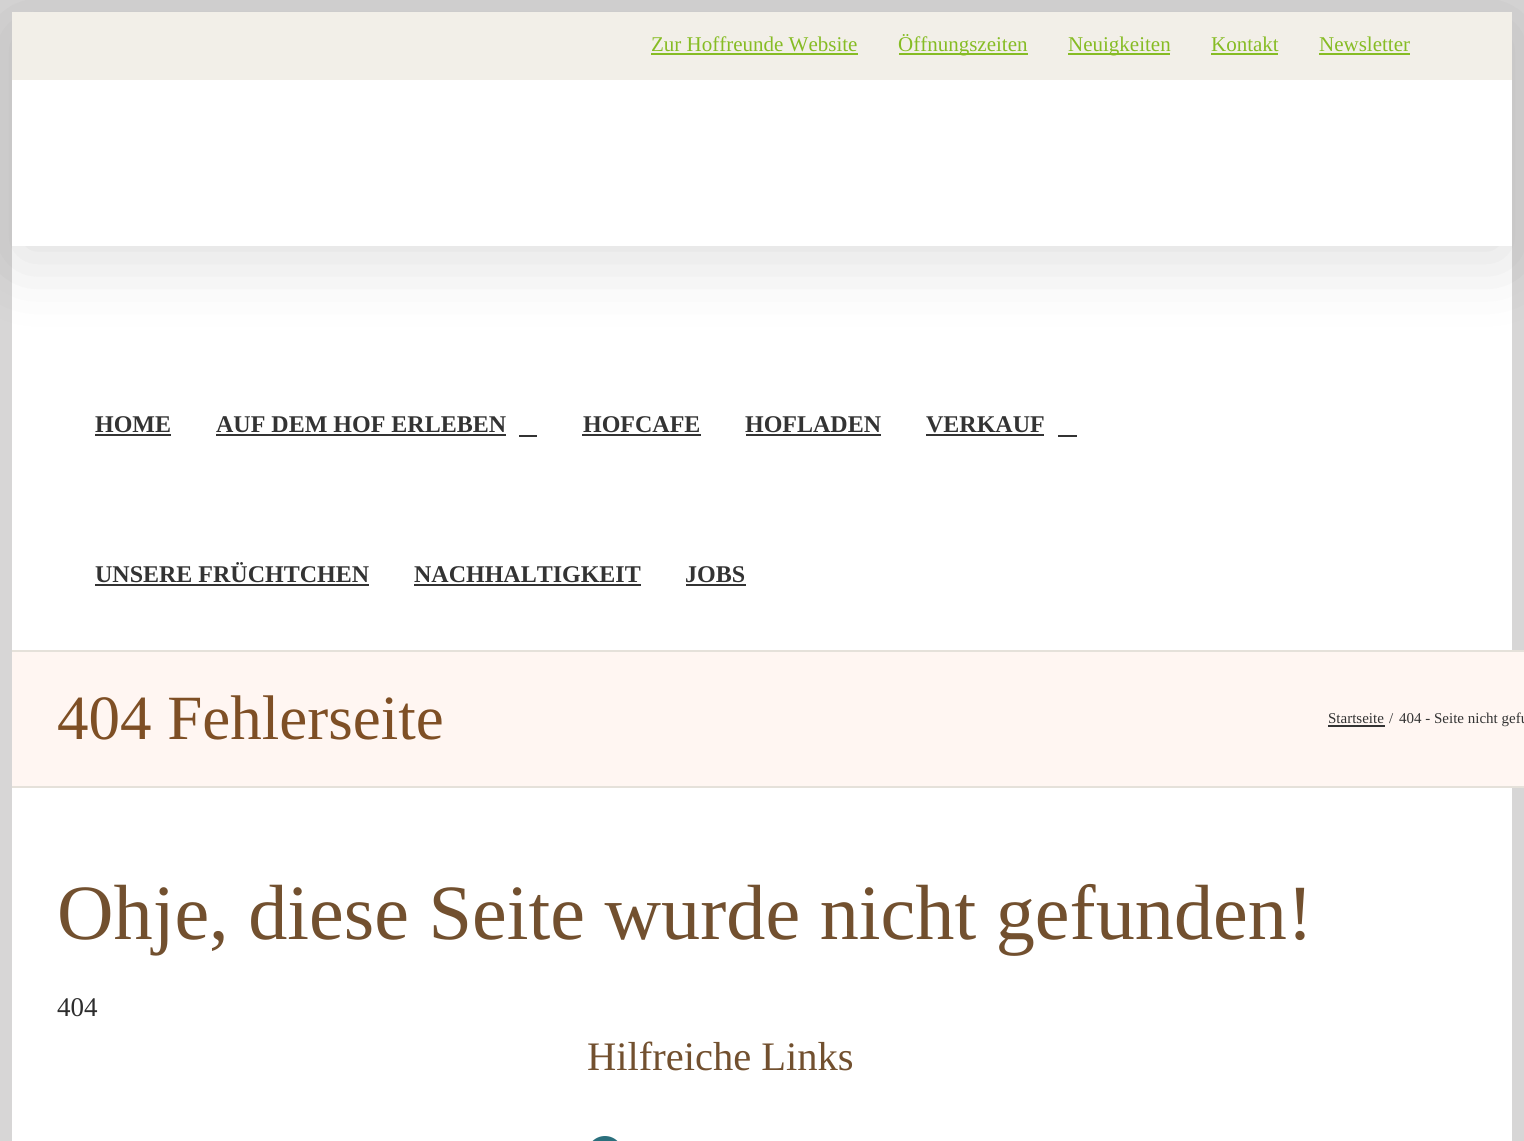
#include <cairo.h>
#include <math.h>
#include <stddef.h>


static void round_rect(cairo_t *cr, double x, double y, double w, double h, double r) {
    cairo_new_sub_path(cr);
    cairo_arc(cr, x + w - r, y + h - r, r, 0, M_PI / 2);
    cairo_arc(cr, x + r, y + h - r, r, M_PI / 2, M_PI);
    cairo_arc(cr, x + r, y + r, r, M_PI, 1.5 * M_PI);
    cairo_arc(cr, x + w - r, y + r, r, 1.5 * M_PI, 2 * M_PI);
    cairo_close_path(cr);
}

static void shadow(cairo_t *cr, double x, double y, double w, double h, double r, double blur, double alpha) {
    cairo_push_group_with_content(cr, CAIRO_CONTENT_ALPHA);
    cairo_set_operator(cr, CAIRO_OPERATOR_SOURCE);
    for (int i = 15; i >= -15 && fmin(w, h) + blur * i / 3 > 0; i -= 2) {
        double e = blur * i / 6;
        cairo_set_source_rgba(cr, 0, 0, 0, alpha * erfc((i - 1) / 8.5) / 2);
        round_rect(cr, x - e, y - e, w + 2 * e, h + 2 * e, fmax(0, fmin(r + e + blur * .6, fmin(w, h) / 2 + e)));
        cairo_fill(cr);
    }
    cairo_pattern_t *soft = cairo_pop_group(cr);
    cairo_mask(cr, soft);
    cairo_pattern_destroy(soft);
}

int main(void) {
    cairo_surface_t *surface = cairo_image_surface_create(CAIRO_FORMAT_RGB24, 1524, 1141);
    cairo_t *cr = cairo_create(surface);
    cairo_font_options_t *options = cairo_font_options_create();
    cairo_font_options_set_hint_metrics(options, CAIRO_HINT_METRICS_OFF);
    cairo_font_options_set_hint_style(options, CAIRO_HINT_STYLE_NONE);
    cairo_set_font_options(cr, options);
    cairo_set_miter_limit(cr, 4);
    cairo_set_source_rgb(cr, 0.843, 0.839, 0.839);
    cairo_paint(cr);
    cairo_set_source_rgb(cr, 1, 1, 1);
    cairo_rectangle(cr, 12, 80, 1500, 1061);
    cairo_fill(cr);
    cairo_save(cr);
    cairo_set_fill_rule(cr, CAIRO_FILL_RULE_EVEN_ODD);
    cairo_new_path(cr);
    cairo_move_to(cr, 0, 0);
    cairo_line_to(cr, 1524, 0);
    cairo_line_to(cr, 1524, 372);
    cairo_line_to(cr, 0, 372);
    cairo_close_path(cr);
    cairo_move_to(cr, 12, 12);
    cairo_line_to(cr, 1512, 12);
    cairo_line_to(cr, 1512, 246);
    cairo_line_to(cr, 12, 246);
    cairo_close_path(cr);
    cairo_clip(cr);
    cairo_set_source_rgb(cr, 0, 0, 0);
    shadow(cr, 15, 30, 1494, 228, 0, 37.5, 0.14);
    cairo_restore(cr);
    cairo_set_source_rgb(cr, 0.949, 0.937, 0.91);
    cairo_rectangle(cr, 12, 12, 1500, 68);
    cairo_fill(cr);
    cairo_select_font_face(cr, "Liberation Serif", CAIRO_FONT_SLANT_NORMAL, CAIRO_FONT_WEIGHT_NORMAL);
    cairo_set_font_size(cr, 21);
    cairo_set_source_rgb(cr, 0.525, 0.737, 0.141);
    cairo_move_to(cr, 651, 51);
    cairo_show_text(cr, "Zur Hoffreunde Website");
    cairo_rectangle(cr, 651, 53, 207, 2);
    cairo_fill(cr);
    cairo_rectangle(cr, 899, 53, 129, 2);
    cairo_fill(cr);
    cairo_move_to(cr, 898, 51);
    cairo_show_text(cr, "Öffnungszeiten");
    cairo_rectangle(cr, 1068, 53, 102, 2);
    cairo_fill(cr);
    cairo_move_to(cr, 1068, 51);
    cairo_show_text(cr, "Neuigkeiten");
    cairo_move_to(cr, 1211, 51);
    cairo_show_text(cr, "Kontakt");
    cairo_rectangle(cr, 1211, 53, 67, 2);
    cairo_fill(cr);
    cairo_move_to(cr, 1319, 51);
    cairo_show_text(cr, "Newsletter");
    cairo_rectangle(cr, 1319, 53, 91, 2);
    cairo_fill(cr);
    cairo_select_font_face(cr, "Liberation Serif", CAIRO_FONT_SLANT_NORMAL, CAIRO_FONT_WEIGHT_BOLD);
    cairo_set_font_size(cr, 24);
    cairo_set_source_rgb(cr, 0.2, 0.2, 0.2);
    cairo_move_to(cr, 95, 432);
    cairo_show_text(cr, "HOME");
    cairo_rectangle(cr, 95, 434, 76, 2);
    cairo_fill(cr);
    cairo_move_to(cr, 216, 432);
    cairo_show_text(cr, "AUF DEM HOF ERLEBEN");
    cairo_rectangle(cr, 216, 434, 290, 2);
    cairo_fill(cr);
    cairo_rectangle(cr, 519, 435, 18, 2);
    cairo_fill(cr);
    cairo_move_to(cr, 583, 432);
    cairo_show_text(cr, "HOFCAFE");
    cairo_rectangle(cr, 582, 434, 119, 2);
    cairo_fill(cr);
    cairo_move_to(cr, 745, 432);
    cairo_show_text(cr, "HOFLADEN");
    cairo_rectangle(cr, 746, 434, 135, 2);
    cairo_fill(cr);
    cairo_move_to(cr, 926, 432);
    cairo_show_text(cr, "VERKAUF");
    cairo_rectangle(cr, 926, 434, 118, 2);
    cairo_fill(cr);
    cairo_rectangle(cr, 1058, 435, 19, 2);
    cairo_fill(cr);
    cairo_move_to(cr, 95, 582);
    cairo_show_text(cr, "UNSERE FRÜCHTCHEN");
    cairo_rectangle(cr, 95, 584, 274, 2);
    cairo_fill(cr);
    cairo_move_to(cr, 414, 582);
    cairo_show_text(cr, "NACHHALTIGKEIT");
    cairo_rectangle(cr, 414, 584, 227, 2);
    cairo_fill(cr);
    cairo_move_to(cr, 685, 582);
    cairo_show_text(cr, "JOBS");
    cairo_rectangle(cr, 686, 584, 60, 2);
    cairo_fill(cr);
    cairo_set_source_rgb(cr, 1, 0.961, 0.949);
    cairo_rectangle(cr, 12, 652, 1512, 134);
    cairo_fill(cr);
    cairo_set_source_rgb(cr, 0.898, 0.882, 0.855);
    cairo_rectangle(cr, 12, 650, 1512, 2);
    cairo_fill(cr);
    cairo_rectangle(cr, 12, 786, 1512, 2);
    cairo_fill(cr);
    cairo_select_font_face(cr, "Liberation Serif", CAIRO_FONT_SLANT_NORMAL, CAIRO_FONT_WEIGHT_NORMAL);
    cairo_set_font_size(cr, 63);
    cairo_set_source_rgb(cr, 0.494, 0.31, 0.145);
    cairo_move_to(cr, 57, 739);
    cairo_show_text(cr, "404 Fehlerseite");
    cairo_set_font_size(cr, 15);
    cairo_set_source_rgb(cr, 0.2, 0.2, 0.2);
    cairo_move_to(cr, 1328, 723);
    cairo_show_text(cr, "Startseite");
    cairo_rectangle(cr, 1328, 725, 57, 2);
    cairo_fill(cr);
    cairo_move_to(cr, 1389, 723);
    cairo_show_text(cr, "/");
    cairo_move_to(cr, 1399, 723);
    cairo_show_text(cr, "404 - Seite nicht gefu");
    cairo_set_font_size(cr, 78.25);
    cairo_set_source_rgb(cr, 0.447, 0.314, 0.184);
    cairo_move_to(cr, 57, 939);
    cairo_show_text(cr, "Ohje, diese Seite wurde nicht gefunden!");
    cairo_set_font_size(cr, 27);
    cairo_set_source_rgb(cr, 0.176, 0.176, 0.176);
    cairo_move_to(cr, 57, 1016);
    cairo_show_text(cr, "404");
    cairo_set_font_size(cr, 40.5);
    cairo_set_source_rgb(cr, 0.447, 0.314, 0.184);
    cairo_move_to(cr, 587, 1070);
    cairo_show_text(cr, "Hilfreiche Links");
    cairo_set_source_rgb(cr, 0.169, 0.439, 0.49);
    round_rect(cr, 587, 1136, 36, 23, 18);
    cairo_fill(cr);
    cairo_surface_write_to_png(surface, "page.png");
    cairo_font_options_destroy(options);
    cairo_destroy(cr);
    cairo_surface_destroy(surface);
    return 0;
}
